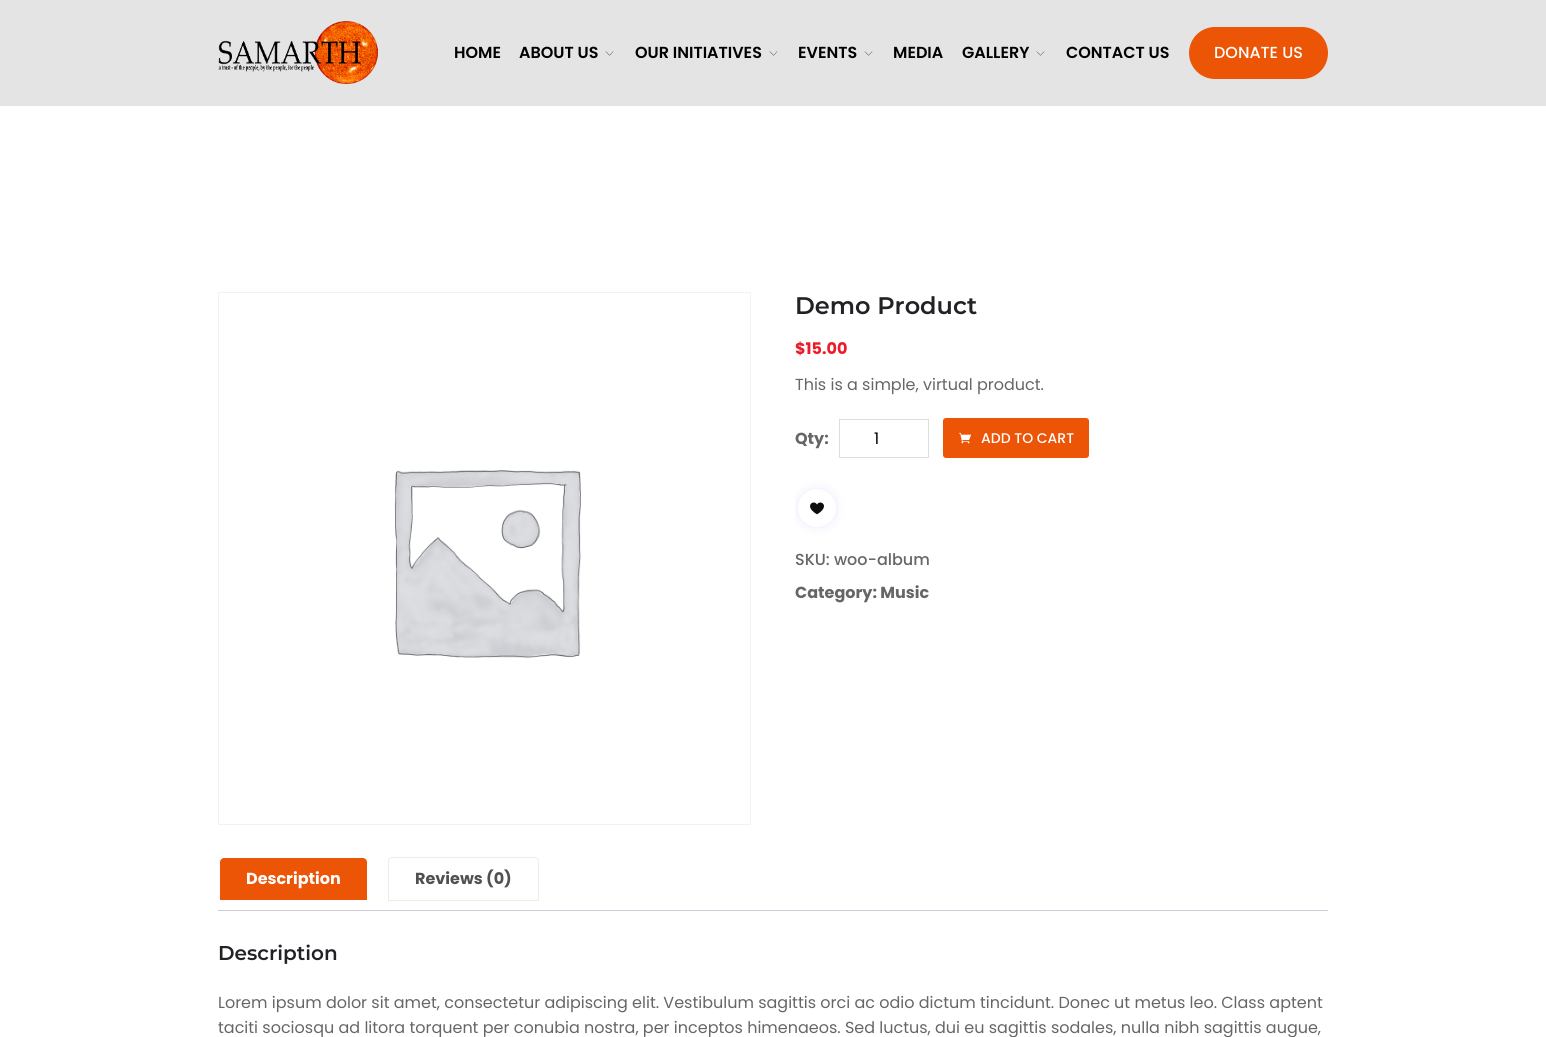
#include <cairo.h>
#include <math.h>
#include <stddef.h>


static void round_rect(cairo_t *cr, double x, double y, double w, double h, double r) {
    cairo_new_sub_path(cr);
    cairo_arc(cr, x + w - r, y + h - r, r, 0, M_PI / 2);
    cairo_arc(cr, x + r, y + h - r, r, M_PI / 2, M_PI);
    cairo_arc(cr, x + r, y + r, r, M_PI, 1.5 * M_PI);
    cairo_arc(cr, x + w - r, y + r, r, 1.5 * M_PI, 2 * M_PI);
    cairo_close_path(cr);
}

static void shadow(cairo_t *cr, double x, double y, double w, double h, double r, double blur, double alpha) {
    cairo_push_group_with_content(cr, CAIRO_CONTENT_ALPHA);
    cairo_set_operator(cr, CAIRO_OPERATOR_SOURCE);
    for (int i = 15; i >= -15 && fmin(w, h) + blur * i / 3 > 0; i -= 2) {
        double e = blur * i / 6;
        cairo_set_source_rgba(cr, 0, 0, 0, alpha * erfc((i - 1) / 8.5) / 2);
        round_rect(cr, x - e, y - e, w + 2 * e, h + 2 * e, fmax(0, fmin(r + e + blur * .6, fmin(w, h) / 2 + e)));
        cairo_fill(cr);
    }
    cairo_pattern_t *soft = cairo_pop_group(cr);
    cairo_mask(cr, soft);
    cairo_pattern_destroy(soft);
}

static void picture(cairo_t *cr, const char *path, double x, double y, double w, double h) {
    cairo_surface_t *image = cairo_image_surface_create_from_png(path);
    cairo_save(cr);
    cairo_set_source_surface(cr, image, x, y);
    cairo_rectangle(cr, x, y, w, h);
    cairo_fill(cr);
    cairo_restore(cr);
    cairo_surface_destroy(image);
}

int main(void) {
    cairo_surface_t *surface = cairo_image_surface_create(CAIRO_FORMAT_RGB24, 1546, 1037);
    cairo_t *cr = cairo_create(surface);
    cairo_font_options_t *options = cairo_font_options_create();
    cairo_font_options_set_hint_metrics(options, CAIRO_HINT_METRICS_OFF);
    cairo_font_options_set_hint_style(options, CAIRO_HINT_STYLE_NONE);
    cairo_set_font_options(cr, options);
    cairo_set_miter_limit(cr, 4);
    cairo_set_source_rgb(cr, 1, 1, 1);
    cairo_paint(cr);
    cairo_set_source_rgb(cr, 0.894, 0.894, 0.894);
    cairo_rectangle(cr, 0, 0, 1546, 106);
    cairo_fill(cr);
    picture(cr, "img1.png", 218, 21, 160, 63);
    cairo_select_font_face(cr, "Poppins SemiBold", CAIRO_FONT_SLANT_NORMAL, CAIRO_FONT_WEIGHT_NORMAL);
    cairo_set_font_size(cr, 16);
    cairo_set_source_rgb(cr, 0, 0, 0);
    cairo_move_to(cr, 454, 58);
    cairo_show_text(cr, "HOME");
    cairo_move_to(cr, 519, 58);
    cairo_show_text(cr, "ABOUT US");
    picture(cr, "img2.png", 605, 51, 9, 5);
    cairo_move_to(cr, 635, 58);
    cairo_show_text(cr, "OUR INITIATIVES");
    picture(cr, "img2.png", 769, 51, 9, 5);
    cairo_move_to(cr, 798, 58);
    cairo_show_text(cr, "EVENTS");
    picture(cr, "img2.png", 864, 51, 9, 5);
    cairo_move_to(cr, 893, 58);
    cairo_show_text(cr, "MEDIA");
    cairo_move_to(cr, 962, 58);
    cairo_show_text(cr, "GALLERY");
    picture(cr, "img2.png", 1036, 51, 9, 5);
    cairo_move_to(cr, 1066, 58);
    cairo_show_text(cr, "CONTACT US");
    cairo_set_source_rgb(cr, 0.922, 0.329, 0.024);
    round_rect(cr, 1189, 27, 139, 52, 26);
    cairo_fill(cr);
    cairo_select_font_face(cr, "Poppins Medium", CAIRO_FONT_SLANT_NORMAL, CAIRO_FONT_WEIGHT_NORMAL);
    cairo_set_source_rgb(cr, 1, 1, 1);
    cairo_move_to(cr, 1214, 58);
    cairo_show_text(cr, "DONATE US");
    cairo_rectangle(cr, 218.5, 292.5, 532, 532);
    cairo_set_source_rgb(cr, 0.949, 0.949, 0.949);
    cairo_set_line_width(cr, 1);
    cairo_stroke(cr);
    picture(cr, "img3.png", 394, 470, 187, 188);
    cairo_select_font_face(cr, "Montserrat SemiBold", CAIRO_FONT_SLANT_NORMAL, CAIRO_FONT_WEIGHT_NORMAL);
    cairo_set_font_size(cr, 24);
    cairo_set_source_rgb(cr, 0.125, 0.133, 0.149);
    cairo_move_to(cr, 795, 314);
    cairo_show_text(cr, "Demo Product");
    cairo_select_font_face(cr, "Poppins", CAIRO_FONT_SLANT_NORMAL, CAIRO_FONT_WEIGHT_BOLD);
    cairo_set_font_size(cr, 16);
    cairo_set_source_rgb(cr, 0.922, 0.106, 0.169);
    cairo_move_to(cr, 795, 354);
    cairo_show_text(cr, "$15.00");
    cairo_select_font_face(cr, "Poppins", CAIRO_FONT_SLANT_NORMAL, CAIRO_FONT_WEIGHT_NORMAL);
    cairo_set_source_rgb(cr, 0.4, 0.4, 0.4);
    cairo_move_to(cr, 795, 390);
    cairo_show_text(cr, "This is a simple, virtual product.");
    cairo_select_font_face(cr, "Poppins", CAIRO_FONT_SLANT_NORMAL, CAIRO_FONT_WEIGHT_BOLD);
    cairo_move_to(cr, 795, 444);
    cairo_show_text(cr, "Qty:");
    cairo_rectangle(cr, 839.5, 419.5, 89, 38);
    cairo_set_source_rgb(cr, 0.867, 0.867, 0.867);
    cairo_stroke(cr);
    cairo_select_font_face(cr, "Poppins", CAIRO_FONT_SLANT_NORMAL, CAIRO_FONT_WEIGHT_NORMAL);
    cairo_set_source_rgb(cr, 0, 0, 0);
    cairo_move_to(cr, 874, 444);
    cairo_show_text(cr, "1");
    cairo_set_source_rgb(cr, 0.922, 0.329, 0.024);
    round_rect(cr, 943, 418, 146, 40, 3);
    cairo_fill(cr);
    picture(cr, "img4.png", 958, 432, 14, 12);
    cairo_select_font_face(cr, "Poppins Medium", CAIRO_FONT_SLANT_NORMAL, CAIRO_FONT_WEIGHT_NORMAL);
    cairo_set_font_size(cr, 14);
    cairo_set_source_rgb(cr, 1, 1, 1);
    cairo_move_to(cr, 981, 443);
    cairo_show_text(cr, "ADD TO CART");
    cairo_save(cr);
    cairo_rectangle(cr, 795, 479, 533, 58);
    cairo_clip(cr);
    cairo_set_source_rgb(cr, 0.58, 0.573, 0.961);
    shadow(cr, 798, 489, 38, 38, 19, 5, 0.2);
    cairo_restore(cr);
    cairo_arc(cr, 817, 508, 19, 0, 2 * M_PI);
    cairo_fill(cr);
    picture(cr, "img5.png", 810, 502, 14, 13);
    cairo_set_font_size(cr, 16);
    cairo_set_source_rgb(cr, 0.4, 0.4, 0.4);
    cairo_move_to(cr, 795, 565);
    cairo_show_text(cr, "SKU: woo-album");
    cairo_select_font_face(cr, "Poppins", CAIRO_FONT_SLANT_NORMAL, CAIRO_FONT_WEIGHT_BOLD);
    cairo_move_to(cr, 795, 598);
    cairo_show_text(cr, "Category: Music");
    cairo_set_source_rgb(cr, 0.922, 0.329, 0.024);
    cairo_new_path(cr);
    cairo_move_to(cr, 224, 858);
    cairo_line_to(cr, 363, 858);
    cairo_curve_to(cr, 365, 858, 367, 860, 367, 862);
    cairo_line_to(cr, 367, 900);
    cairo_line_to(cr, 220, 900);
    cairo_line_to(cr, 220, 862);
    cairo_curve_to(cr, 220, 860, 222, 858, 224, 858);
    cairo_close_path(cr);
    cairo_fill(cr);
    cairo_set_source_rgb(cr, 1, 1, 1);
    cairo_move_to(cr, 246, 884);
    cairo_show_text(cr, "Description");
    cairo_new_path(cr);
    cairo_move_to(cr, 392, 857.5);
    cairo_line_to(cr, 535, 857.5);
    cairo_curve_to(cr, 537, 857.5, 538.5, 859, 538.5, 861);
    cairo_line_to(cr, 538.5, 900.5);
    cairo_line_to(cr, 388.5, 900.5);
    cairo_line_to(cr, 388.5, 861);
    cairo_curve_to(cr, 388.5, 859, 390, 857.5, 392, 857.5);
    cairo_close_path(cr);
    cairo_set_source_rgb(cr, 0.925, 0.925, 0.925);
    cairo_stroke(cr);
    cairo_set_source_rgb(cr, 0.318, 0.318, 0.318);
    cairo_move_to(cr, 415, 884);
    cairo_show_text(cr, "Reviews (0)");
    cairo_set_source_rgb(cr, 0.812, 0.784, 0.847);
    cairo_rectangle(cr, 218, 910, 1110, 1);
    cairo_fill(cr);
    cairo_select_font_face(cr, "Montserrat SemiBold", CAIRO_FONT_SLANT_NORMAL, CAIRO_FONT_WEIGHT_NORMAL);
    cairo_set_font_size(cr, 20);
    cairo_set_source_rgb(cr, 0.125, 0.133, 0.149);
    cairo_move_to(cr, 218, 960);
    cairo_show_text(cr, "Description");
    cairo_select_font_face(cr, "Poppins", CAIRO_FONT_SLANT_NORMAL, CAIRO_FONT_WEIGHT_NORMAL);
    cairo_set_font_size(cr, 16);
    cairo_set_source_rgb(cr, 0.4, 0.4, 0.4);
    cairo_move_to(cr, 218, 1008);
    cairo_show_text(cr, "Lorem ipsum dolor sit amet, consectetur adipiscing elit. Vestibulum sagittis orci ac odio dictum tincidunt. Donec ut metus leo. Class aptent");
    cairo_move_to(cr, 218, 1033);
    cairo_show_text(cr, "taciti sociosqu ad litora torquent per conubia nostra, per inceptos himenaeos. Sed luctus, dui eu sagittis sodales, nulla nibh sagittis augue,");
    cairo_surface_write_to_png(surface, "page.png");
    cairo_font_options_destroy(options);
    cairo_destroy(cr);
    cairo_surface_destroy(surface);
    return 0;
}
